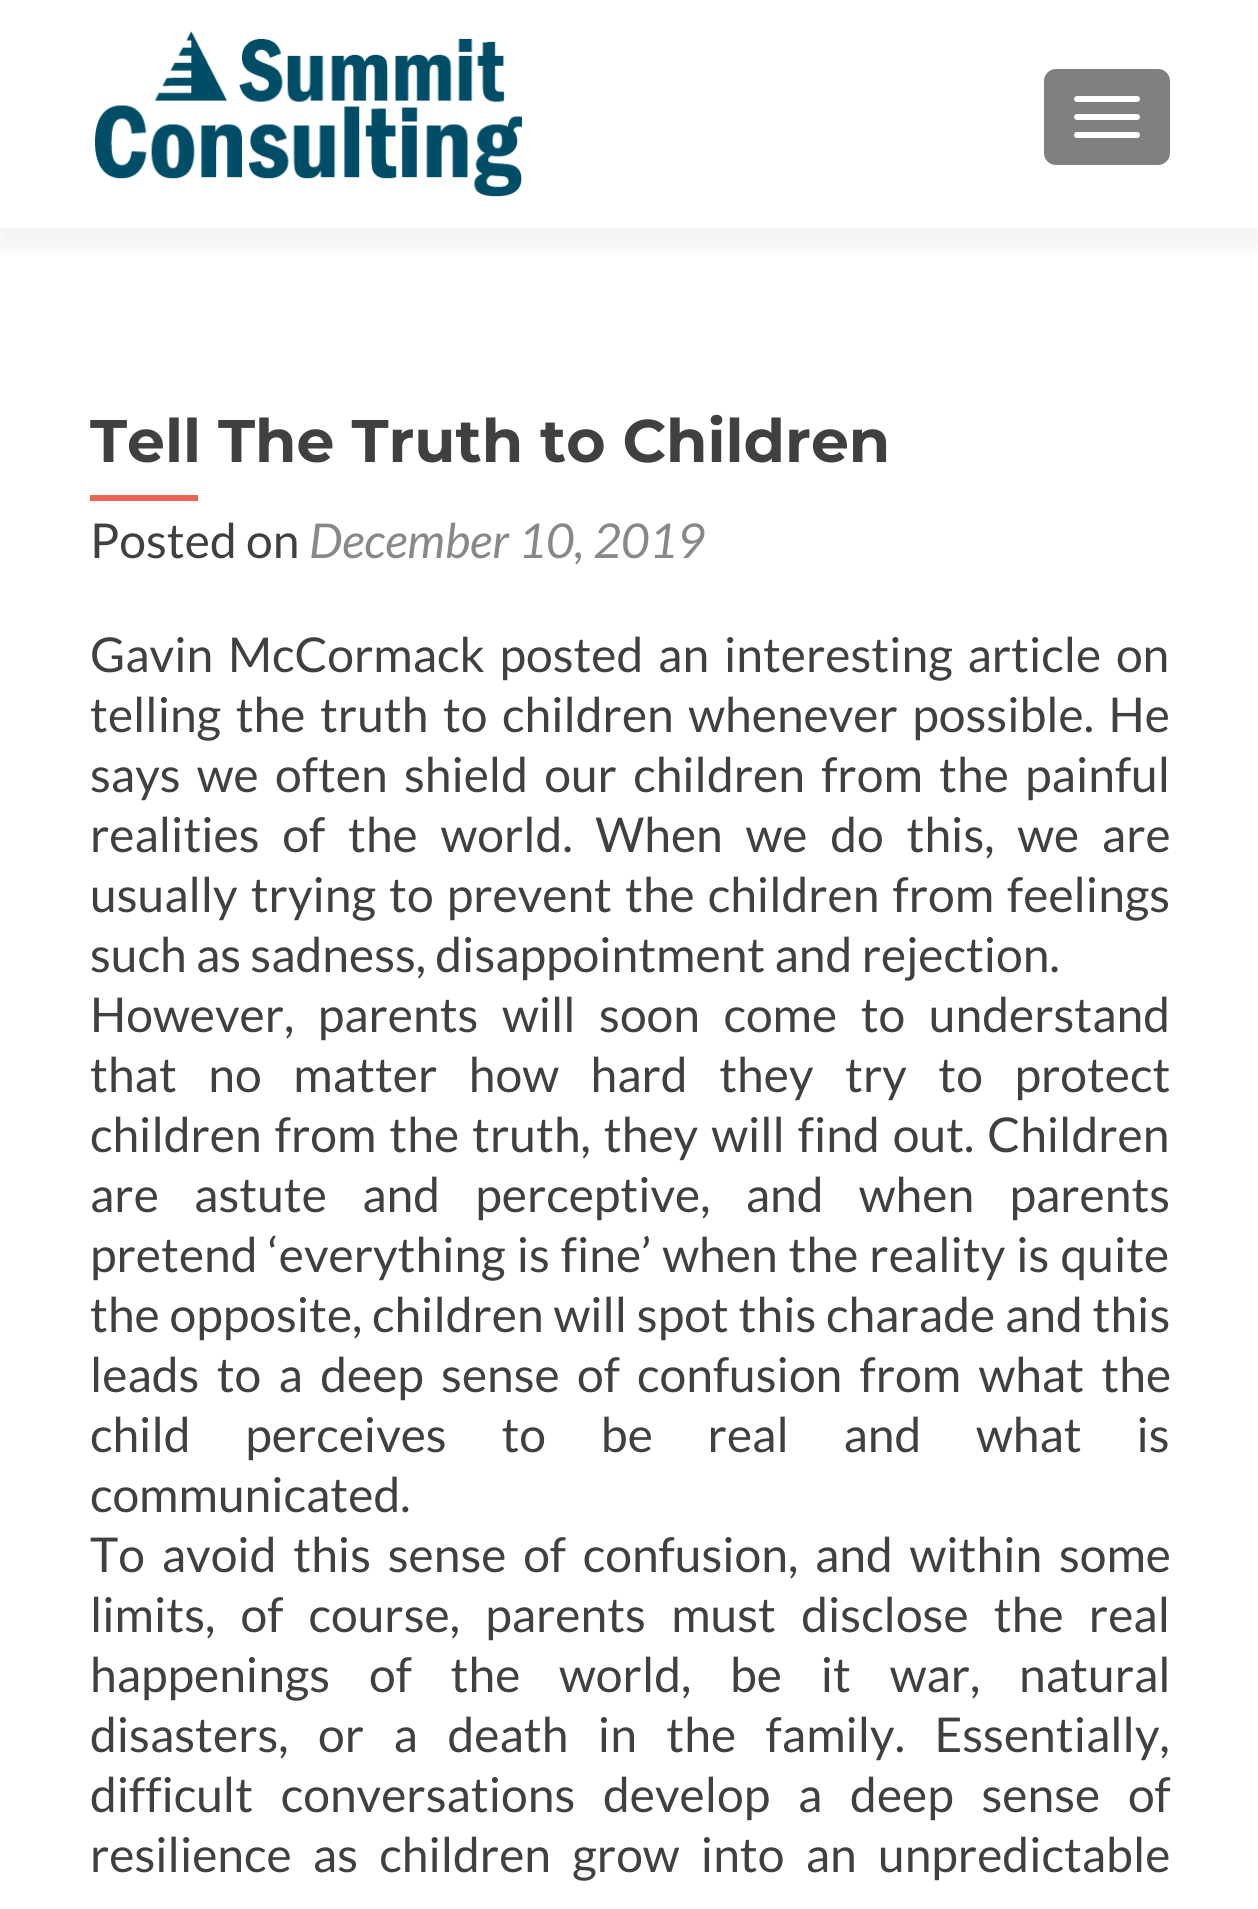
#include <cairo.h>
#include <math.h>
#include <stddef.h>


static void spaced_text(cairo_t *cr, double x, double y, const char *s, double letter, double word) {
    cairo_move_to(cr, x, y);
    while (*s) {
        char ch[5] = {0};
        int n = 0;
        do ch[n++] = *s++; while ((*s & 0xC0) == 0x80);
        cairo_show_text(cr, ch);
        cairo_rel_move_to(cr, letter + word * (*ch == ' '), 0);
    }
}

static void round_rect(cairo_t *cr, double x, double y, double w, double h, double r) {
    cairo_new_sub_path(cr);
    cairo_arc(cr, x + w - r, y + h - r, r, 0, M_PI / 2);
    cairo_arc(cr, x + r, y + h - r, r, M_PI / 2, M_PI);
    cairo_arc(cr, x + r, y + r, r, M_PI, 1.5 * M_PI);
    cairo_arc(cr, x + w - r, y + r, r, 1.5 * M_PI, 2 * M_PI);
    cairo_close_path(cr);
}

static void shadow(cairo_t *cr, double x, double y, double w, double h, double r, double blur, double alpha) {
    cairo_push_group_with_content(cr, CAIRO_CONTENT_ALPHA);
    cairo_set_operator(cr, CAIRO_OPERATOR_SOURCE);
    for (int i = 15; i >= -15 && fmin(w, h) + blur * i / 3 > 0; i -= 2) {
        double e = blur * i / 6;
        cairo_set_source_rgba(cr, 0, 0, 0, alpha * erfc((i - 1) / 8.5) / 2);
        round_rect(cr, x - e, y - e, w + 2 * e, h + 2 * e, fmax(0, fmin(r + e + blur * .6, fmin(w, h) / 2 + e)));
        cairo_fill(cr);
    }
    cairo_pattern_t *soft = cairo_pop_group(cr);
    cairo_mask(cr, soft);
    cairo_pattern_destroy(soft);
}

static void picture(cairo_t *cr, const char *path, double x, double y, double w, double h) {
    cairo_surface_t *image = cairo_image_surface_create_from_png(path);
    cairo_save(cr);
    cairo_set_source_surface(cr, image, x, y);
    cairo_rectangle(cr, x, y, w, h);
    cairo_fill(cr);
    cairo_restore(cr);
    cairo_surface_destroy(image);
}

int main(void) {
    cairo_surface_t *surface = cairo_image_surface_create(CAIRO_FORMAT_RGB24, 1258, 1909);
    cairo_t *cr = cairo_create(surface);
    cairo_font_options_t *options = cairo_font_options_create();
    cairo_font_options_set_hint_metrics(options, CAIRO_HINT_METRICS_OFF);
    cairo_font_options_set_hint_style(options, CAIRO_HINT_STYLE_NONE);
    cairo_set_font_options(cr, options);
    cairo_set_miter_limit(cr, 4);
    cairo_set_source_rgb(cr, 1, 1, 1);
    cairo_paint(cr);
    cairo_save(cr);
    cairo_rectangle(cr, 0, 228, 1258, 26);
    cairo_clip(cr);
    cairo_set_source_rgb(cr, 0.196, 0.196, 0.196);
    shadow(cr, 0, 15, 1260, 228, 0, 16.5, 0.08);
    cairo_restore(cr);
    picture(cr, "img1.png", 95, 31, 427, 166);
    cairo_set_source_rgb(cr, 0.502, 0.502, 0.502);
    round_rect(cr, 1044, 69, 126, 96, 12);
    cairo_fill(cr);
    cairo_set_source_rgb(cr, 1, 1, 1);
    round_rect(cr, 1074, 96, 66, 6, 3);
    cairo_fill(cr);
    round_rect(cr, 1074, 114, 66, 6, 3);
    cairo_fill(cr);
    round_rect(cr, 1074, 132, 66, 6, 3);
    cairo_fill(cr);
    cairo_select_font_face(cr, "Montserrat", CAIRO_FONT_SLANT_NORMAL, CAIRO_FONT_WEIGHT_BOLD);
    cairo_set_font_size(cr, 60);
    cairo_set_source_rgb(cr, 0.251, 0.251, 0.251);
    cairo_move_to(cr, 90, 462);
    cairo_show_text(cr, "Tell The Truth to Children");
    cairo_set_source_rgb(cr, 0.914, 0.4, 0.337);
    cairo_rectangle(cr, 90, 495, 108, 6);
    cairo_fill(cr);
    cairo_select_font_face(cr, "Lato", CAIRO_FONT_SLANT_NORMAL, CAIRO_FONT_WEIGHT_NORMAL);
    cairo_set_font_size(cr, 48);
    cairo_set_source_rgb(cr, 0.251, 0.251, 0.251);
    cairo_move_to(cr, 90, 558);
    cairo_show_text(cr, "Posted on");
    cairo_select_font_face(cr, "Lato", CAIRO_FONT_SLANT_ITALIC, CAIRO_FONT_WEIGHT_NORMAL);
    cairo_set_source_rgb(cr, 0.533, 0.533, 0.533);
    cairo_move_to(cr, 309, 558);
    cairo_show_text(cr, "December 10, 2019");
    cairo_select_font_face(cr, "Lato", CAIRO_FONT_SLANT_NORMAL, CAIRO_FONT_WEIGHT_NORMAL);
    cairo_set_source_rgb(cr, 0.251, 0.251, 0.251);
    spaced_text(cr, 90, 672, "Gavin McCormack posted an interesting article on", 0, 5.5);
    spaced_text(cr, 90, 732, "telling the truth to children whenever possible. He", 0, 5.25);
    spaced_text(cr, 90, 792, "says we often shield our children from the painful", 0, 7);
    spaced_text(cr, 90, 852, "realities of the world. When we do this, we are", 0, 13.5);
    spaced_text(cr, 90, 912, "usually trying to prevent the children from feelings", 0, 3.75);
    cairo_move_to(cr, 90, 972);
    cairo_show_text(cr, "such as sadness, disappointment and rejection.");
    spaced_text(cr, 90, 1032, "However, parents will soon come to understand", 0, 14.25);
    spaced_text(cr, 90, 1092, "that no matter how hard they try to protect", 0, 22.25);
    spaced_text(cr, 90, 1152, "children from the truth, they will find out. Children", 0, 3.75);
    spaced_text(cr, 90, 1212, "are astute and perceptive, and when parents", 0, 26);
    spaced_text(cr, 90, 1272, "pretend ‘everything is fine’ when the reality is quite", 0, 1.75);
    spaced_text(cr, 90, 1332, "the opposite, children will spot this charade and this", 0, 0.5);
    spaced_text(cr, 90, 1392, "leads to a deep sense of confusion from what the", 0, 8);
    spaced_text(cr, 90, 1452, "child perceives to be real and what is", 0, 45.5);
    cairo_move_to(cr, 90, 1512);
    cairo_show_text(cr, "communicated.");
    spaced_text(cr, 90, 1572, "To avoid this sense of confusion, and within some", 0, 7.5);
    spaced_text(cr, 90, 1632, "limits, of course, parents must disclose the real", 0, 16);
    spaced_text(cr, 90, 1692, "happenings of the world, be it war, natural", 0, 29.5);
    spaced_text(cr, 90, 1752, "disasters, or a death in the family. Essentially,", 0, 20.25);
    spaced_text(cr, 90, 1812, "difficult conversations develop a deep sense of", 0, 18.5);
    spaced_text(cr, 90, 1872, "resilience as children grow into an unpredictable", 0, 12);
    cairo_surface_write_to_png(surface, "page.png");
    cairo_font_options_destroy(options);
    cairo_destroy(cr);
    cairo_surface_destroy(surface);
    return 0;
}
